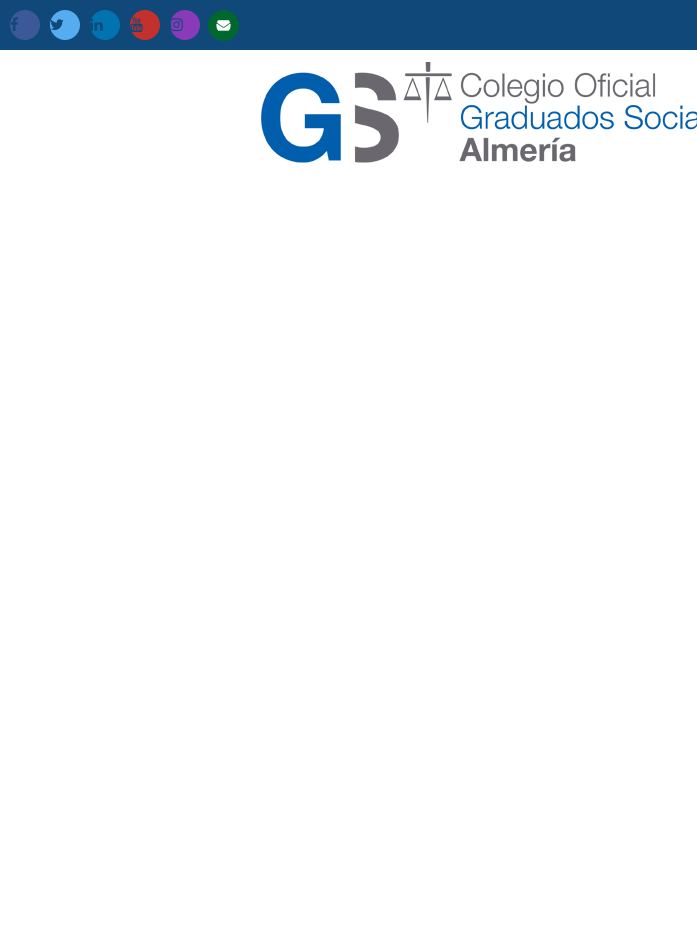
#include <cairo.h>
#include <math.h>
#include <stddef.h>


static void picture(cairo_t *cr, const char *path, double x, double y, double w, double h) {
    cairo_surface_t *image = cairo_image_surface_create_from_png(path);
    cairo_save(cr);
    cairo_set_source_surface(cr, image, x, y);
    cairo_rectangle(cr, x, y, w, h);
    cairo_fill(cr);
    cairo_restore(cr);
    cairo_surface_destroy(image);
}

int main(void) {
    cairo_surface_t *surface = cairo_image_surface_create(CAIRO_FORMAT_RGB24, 697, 939);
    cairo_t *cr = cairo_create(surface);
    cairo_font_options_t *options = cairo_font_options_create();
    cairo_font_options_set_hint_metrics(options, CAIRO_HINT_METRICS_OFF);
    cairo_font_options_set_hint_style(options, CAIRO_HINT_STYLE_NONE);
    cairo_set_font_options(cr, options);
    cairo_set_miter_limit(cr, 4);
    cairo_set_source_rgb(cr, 0.059, 0.282, 0.475);
    cairo_paint(cr);
    cairo_set_source_rgb(cr, 0.231, 0.349, 0.6);
    cairo_arc(cr, 25, 25, 15, 0, 2 * M_PI);
    cairo_fill(cr);
    picture(cr, "img1.png", 10, 17, 8, 14);
    cairo_set_source_rgb(cr, 0.333, 0.675, 0.933);
    cairo_arc(cr, 65, 25, 15, 0, 2 * M_PI);
    cairo_fill(cr);
    picture(cr, "img2.png", 50, 19, 14, 11);
    cairo_set_source_rgb(cr, 0, 0.451, 0.69);
    cairo_arc(cr, 105, 25, 15, 0, 2 * M_PI);
    cairo_fill(cr);
    picture(cr, "img3.png", 90, 18, 13, 13);
    cairo_set_source_rgb(cr, 0.769, 0.188, 0.169);
    cairo_arc(cr, 145, 25, 15, 0, 2 * M_PI);
    cairo_fill(cr);
    picture(cr, "img4.png", 130, 17, 13, 16);
    cairo_set_source_rgb(cr, 0.541, 0.227, 0.725);
    cairo_arc(cr, 185, 25, 15, 0, 2 * M_PI);
    cairo_fill(cr);
    picture(cr, "img5.png", 170, 18, 13, 14);
    cairo_set_source_rgb(cr, 0, 0.404, 0.18);
    cairo_arc(cr, 223.5, 25.5, 15.5, 0, 2 * M_PI);
    cairo_fill(cr);
    picture(cr, "img6.png", 216, 20, 15, 11);
    cairo_set_source_rgb(cr, 1, 1, 1);
    cairo_rectangle(cr, 0, 50, 697, 889);
    cairo_fill(cr);
    picture(cr, "img7.png", 261, 62, 436, 101);
    cairo_surface_write_to_png(surface, "page.png");
    cairo_font_options_destroy(options);
    cairo_destroy(cr);
    cairo_surface_destroy(surface);
    return 0;
}
